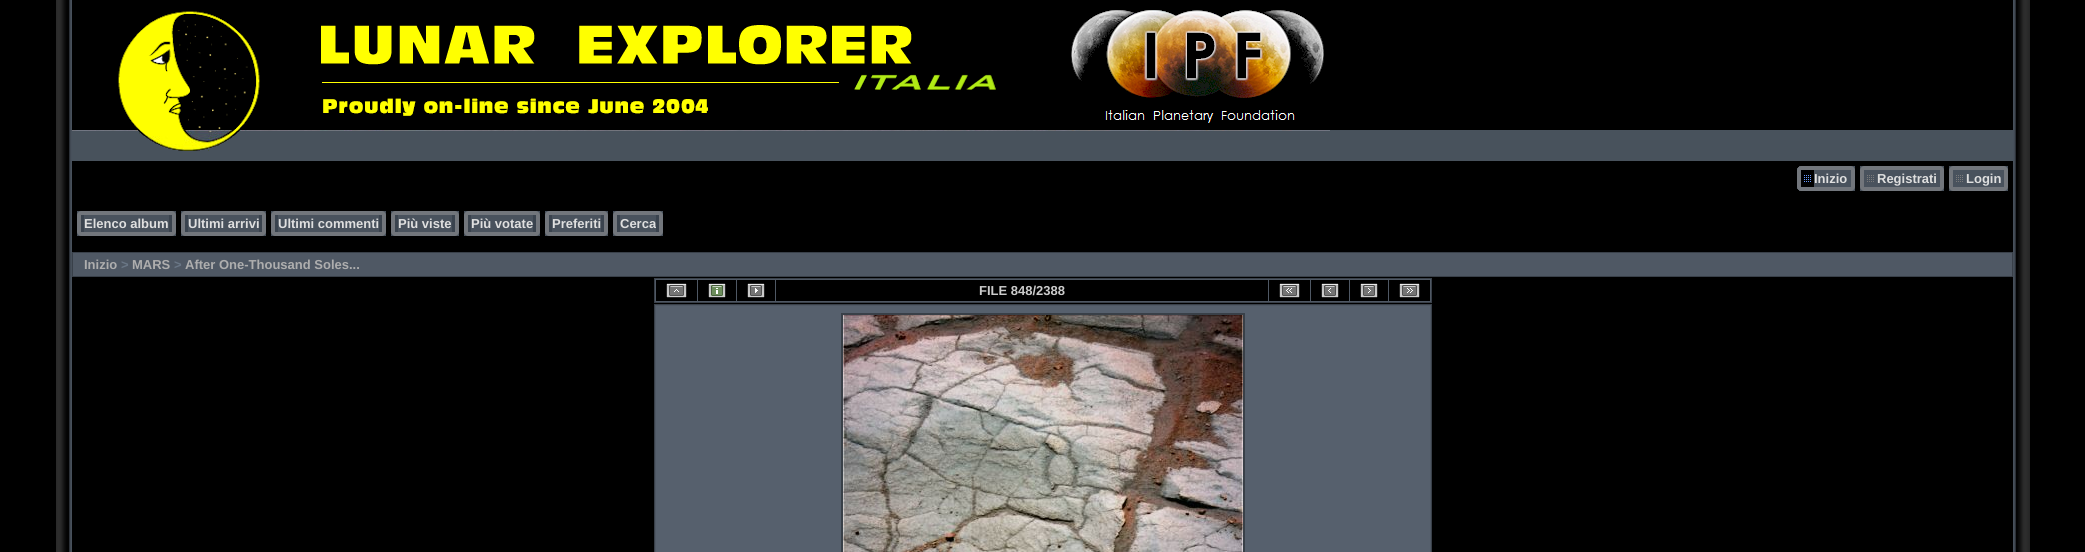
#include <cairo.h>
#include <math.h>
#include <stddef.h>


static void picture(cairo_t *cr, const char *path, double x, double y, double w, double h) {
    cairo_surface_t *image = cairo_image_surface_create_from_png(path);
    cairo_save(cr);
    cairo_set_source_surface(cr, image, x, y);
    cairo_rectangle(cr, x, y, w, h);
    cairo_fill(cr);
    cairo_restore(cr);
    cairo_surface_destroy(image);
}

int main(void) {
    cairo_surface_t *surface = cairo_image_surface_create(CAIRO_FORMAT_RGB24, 2085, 552);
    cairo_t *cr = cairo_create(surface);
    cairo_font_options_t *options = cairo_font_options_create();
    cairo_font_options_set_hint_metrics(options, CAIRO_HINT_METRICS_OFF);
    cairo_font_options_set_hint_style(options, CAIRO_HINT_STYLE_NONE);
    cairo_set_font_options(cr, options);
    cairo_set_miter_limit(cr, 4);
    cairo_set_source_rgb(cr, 0, 0, 0);
    cairo_paint(cr);
    picture(cr, "img1.png", 56, 0, 16, 161);
    cairo_set_source_rgb(cr, 0.282, 0.322, 0.361);
    cairo_rectangle(cr, 72, 130, 1941, 31);
    cairo_fill(cr);
    picture(cr, "img2.png", 72, 10, 1258, 141);
    picture(cr, "img3.png", 2013, 0, 17, 161);
    picture(cr, "img4.png", 56, 161, 16, 391);
    picture(cr, "img5.png", 1797, 166, 17, 25);
    picture(cr, "img6.png", 1814, 166, 34, 25);
    cairo_select_font_face(cr, "Liberation Sans", CAIRO_FONT_SLANT_NORMAL, CAIRO_FONT_WEIGHT_BOLD);
    cairo_set_font_size(cr, 13);
    cairo_set_source_rgb(cr, 0.875, 0.875, 0.875);
    cairo_move_to(cr, 1814, 183);
    cairo_show_text(cr, "Inizio");
    picture(cr, "img7.png", 1848, 166, 7, 25);
    picture(cr, "img8.png", 1860, 166, 17, 25);
    picture(cr, "img9.png", 1877, 166, 60, 25);
    cairo_move_to(cr, 1877, 183);
    cairo_show_text(cr, "Registrati");
    picture(cr, "img7.png", 1937, 166, 7, 25);
    picture(cr, "img8.png", 1949, 166, 17, 25);
    picture(cr, "img10.png", 1966, 166, 35, 25);
    cairo_move_to(cr, 1966, 183);
    cairo_show_text(cr, "Login");
    picture(cr, "img7.png", 2001, 166, 7, 25);
    picture(cr, "img11.png", 77, 211, 7, 25);
    picture(cr, "img12.png", 84, 211, 85, 25);
    cairo_move_to(cr, 84, 228);
    cairo_show_text(cr, "Elenco album");
    picture(cr, "img13.png", 169, 211, 7, 25);
    picture(cr, "img11.png", 181, 211, 7, 25);
    picture(cr, "img14.png", 188, 211, 71, 25);
    cairo_move_to(cr, 188, 228);
    cairo_show_text(cr, "Ultimi arrivi");
    picture(cr, "img13.png", 259, 211, 7, 25);
    picture(cr, "img11.png", 271, 211, 7, 25);
    picture(cr, "img15.png", 278, 211, 101, 25);
    cairo_move_to(cr, 278, 228);
    cairo_show_text(cr, "Ultimi commenti");
    picture(cr, "img13.png", 379, 211, 7, 25);
    picture(cr, "img11.png", 391, 211, 7, 25);
    picture(cr, "img16.png", 398, 211, 54, 25);
    cairo_move_to(cr, 398, 228);
    cairo_show_text(cr, "Più viste");
    picture(cr, "img13.png", 452, 211, 7, 25);
    picture(cr, "img11.png", 464, 211, 7, 25);
    picture(cr, "img17.png", 471, 211, 62, 25);
    cairo_move_to(cr, 471, 228);
    cairo_show_text(cr, "Più votate");
    picture(cr, "img13.png", 533, 211, 7, 25);
    picture(cr, "img11.png", 545, 211, 7, 25);
    picture(cr, "img18.png", 552, 211, 49, 25);
    cairo_move_to(cr, 552, 228);
    cairo_show_text(cr, "Preferiti");
    picture(cr, "img13.png", 601, 211, 7, 25);
    picture(cr, "img11.png", 613, 211, 7, 25);
    picture(cr, "img19.png", 620, 211, 36, 25);
    cairo_move_to(cr, 620, 228);
    cairo_show_text(cr, "Cerca");
    picture(cr, "img13.png", 656, 211, 7, 25);
    cairo_set_source_rgb(cr, 0.31, 0.345, 0.392);
    cairo_rectangle(cr, 72.5, 252.5, 1940, 24);
    cairo_fill_preserve(cr);
    cairo_set_source_rgb(cr, 0.224, 0.251, 0.286);
    cairo_set_line_width(cr, 1);
    cairo_stroke(cr);
    cairo_set_source_rgb(cr, 0.682, 0.682, 0.682);
    cairo_move_to(cr, 84, 269);
    cairo_show_text(cr, "Inizio");
    cairo_set_source_rgb(cr, 0.416, 0.467, 0.525);
    cairo_move_to(cr, 121, 269);
    cairo_show_text(cr, ">");
    cairo_set_source_rgb(cr, 0.682, 0.682, 0.682);
    cairo_move_to(cr, 132, 269);
    cairo_show_text(cr, "MARS");
    cairo_set_source_rgb(cr, 0.416, 0.467, 0.525);
    cairo_move_to(cr, 174, 269);
    cairo_show_text(cr, ">");
    cairo_set_source_rgb(cr, 0.682, 0.682, 0.682);
    cairo_move_to(cr, 185, 269);
    cairo_show_text(cr, "After One-Thousand Soles...");
    cairo_set_source_rgb(cr, 0.31, 0.345, 0.392);
    cairo_rectangle(cr, 654.5, 278.5, 777, 24);
    cairo_fill_preserve(cr);
    cairo_set_source_rgb(cr, 0.224, 0.251, 0.286);
    cairo_stroke(cr);
    cairo_set_source_rgb(cr, 0, 0, 0);
    cairo_rectangle(cr, 656, 280, 41, 21);
    cairo_fill(cr);
    picture(cr, "img20.png", 666, 283, 21, 15);
    cairo_rectangle(cr, 698, 280, 38, 21);
    cairo_fill(cr);
    picture(cr, "img21.png", 708, 283, 18, 15);
    cairo_rectangle(cr, 737, 280, 38, 21);
    cairo_fill(cr);
    picture(cr, "img22.png", 747, 283, 18, 15);
    cairo_rectangle(cr, 776, 280, 492, 21);
    cairo_fill(cr);
    cairo_set_source_rgb(cr, 0.8, 0.8, 0.8);
    cairo_move_to(cr, 979, 295);
    cairo_show_text(cr, "FILE 848/2388");
    cairo_set_source_rgb(cr, 0, 0, 0);
    cairo_rectangle(cr, 1269, 280, 41, 21);
    cairo_fill(cr);
    picture(cr, "img23.png", 1279, 283, 21, 15);
    cairo_rectangle(cr, 1311, 280, 38, 21);
    cairo_fill(cr);
    picture(cr, "img24.png", 1321, 283, 18, 15);
    cairo_rectangle(cr, 1350, 280, 38, 21);
    cairo_fill(cr);
    picture(cr, "img25.png", 1360, 283, 18, 15);
    cairo_rectangle(cr, 1389, 280, 41, 21);
    cairo_fill(cr);
    picture(cr, "img26.png", 1399, 283, 21, 15);
    cairo_set_source_rgb(cr, 0.31, 0.345, 0.392);
    cairo_rectangle(cr, 654.5, 304.5, 777, 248);
    cairo_fill_preserve(cr);
    cairo_set_source_rgb(cr, 0.224, 0.251, 0.286);
    cairo_stroke(cr);
    cairo_set_source_rgb(cr, 0.337, 0.376, 0.427);
    cairo_rectangle(cr, 656, 306, 774, 246);
    cairo_fill(cr);
    cairo_rectangle(cr, 842, 314, 402, 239);
    cairo_set_source_rgb(cr, 0.224, 0.251, 0.282);
    cairo_set_line_width(cr, 2);
    cairo_stroke(cr);
    picture(cr, "img27.png", 843, 315, 400, 237);
    picture(cr, "img28.png", 2013, 161, 17, 391);
    cairo_surface_write_to_png(surface, "page.png");
    cairo_font_options_destroy(options);
    cairo_destroy(cr);
    cairo_surface_destroy(surface);
    return 0;
}
